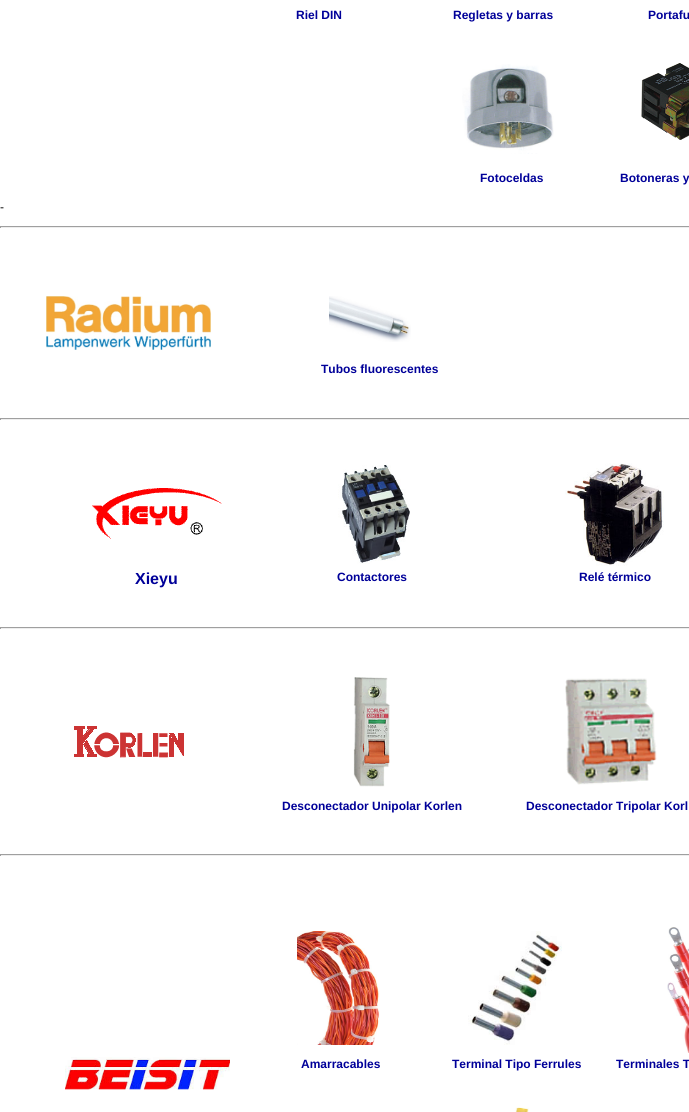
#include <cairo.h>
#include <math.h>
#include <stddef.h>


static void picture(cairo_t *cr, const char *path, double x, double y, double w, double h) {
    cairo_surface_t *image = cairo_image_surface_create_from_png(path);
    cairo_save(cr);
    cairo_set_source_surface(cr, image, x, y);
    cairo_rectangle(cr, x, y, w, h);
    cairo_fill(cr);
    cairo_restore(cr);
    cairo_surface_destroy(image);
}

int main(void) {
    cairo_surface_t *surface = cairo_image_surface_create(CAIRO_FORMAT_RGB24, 689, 1112);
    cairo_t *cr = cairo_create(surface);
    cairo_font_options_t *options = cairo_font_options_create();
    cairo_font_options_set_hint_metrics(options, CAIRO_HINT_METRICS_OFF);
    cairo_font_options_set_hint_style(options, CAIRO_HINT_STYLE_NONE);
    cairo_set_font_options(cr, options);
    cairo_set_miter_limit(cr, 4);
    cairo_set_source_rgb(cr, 1, 1, 1);
    cairo_paint(cr);
    cairo_select_font_face(cr, "Liberation Sans", CAIRO_FONT_SLANT_NORMAL, CAIRO_FONT_WEIGHT_BOLD);
    cairo_set_font_size(cr, 12);
    cairo_set_source_rgb(cr, 0, 0, 0.6);
    cairo_move_to(cr, 296, 19);
    cairo_show_text(cr, "Riel DIN");
    cairo_move_to(cr, 453, 19);
    cairo_show_text(cr, "Regletas y barras");
    cairo_move_to(cr, 648, 19);
    cairo_show_text(cr, "Portafu");
    picture(cr, "img1.png", 462, 64, 92, 90);
    picture(cr, "img2.png", 641, 63, 48, 77);
    cairo_move_to(cr, 480, 182);
    cairo_show_text(cr, "Fotoceldas");
    cairo_move_to(cr, 620, 182);
    cairo_show_text(cr, "Botoneras y");
    cairo_select_font_face(cr, "Liberation Sans", CAIRO_FONT_SLANT_NORMAL, CAIRO_FONT_WEIGHT_NORMAL);
    cairo_set_source_rgb(cr, 0, 0, 0);
    cairo_move_to(cr, 0, 211);
    cairo_show_text(cr, "-");
    cairo_set_source_rgb(cr, 0.624, 0.624, 0.624);
    cairo_rectangle(cr, 0, 226, 689, 1);
    cairo_fill(cr);
    cairo_set_source_rgb(cr, 0.933, 0.933, 0.933);
    cairo_rectangle(cr, 0, 227, 689, 1);
    cairo_fill(cr);
    cairo_set_source_rgb(cr, 0.624, 0.624, 0.624);
    cairo_rectangle(cr, 0, 226, 1, 2);
    cairo_fill(cr);
    picture(cr, "img3.png", 46, 296, 165, 54);
    picture(cr, "img4.png", 329, 296, 82, 46);
    cairo_select_font_face(cr, "Liberation Sans", CAIRO_FONT_SLANT_NORMAL, CAIRO_FONT_WEIGHT_BOLD);
    cairo_set_source_rgb(cr, 0, 0, 0.6);
    cairo_move_to(cr, 321, 373);
    cairo_show_text(cr, "Tubos fluorescentes");
    cairo_set_source_rgb(cr, 0.624, 0.624, 0.624);
    cairo_rectangle(cr, 0, 418, 689, 1);
    cairo_fill(cr);
    cairo_set_source_rgb(cr, 0.933, 0.933, 0.933);
    cairo_rectangle(cr, 0, 419, 689, 1);
    cairo_fill(cr);
    cairo_set_source_rgb(cr, 0.624, 0.624, 0.624);
    cairo_rectangle(cr, 0, 418, 1, 2);
    cairo_fill(cr);
    picture(cr, "img5.png", 92, 488, 130, 51);
    picture(cr, "img6.png", 338, 465, 72, 99);
    picture(cr, "img7.png", 565, 463, 99, 103);
    cairo_set_font_size(cr, 16);
    cairo_set_source_rgb(cr, 0, 0, 0.6);
    cairo_move_to(cr, 135, 584);
    cairo_show_text(cr, "Xieyu");
    cairo_set_font_size(cr, 12);
    cairo_move_to(cr, 337, 581);
    cairo_show_text(cr, "Contactores");
    cairo_move_to(cr, 579, 581);
    cairo_show_text(cr, "Relé térmico");
    cairo_set_source_rgb(cr, 0.624, 0.624, 0.624);
    cairo_rectangle(cr, 0, 627, 689, 1);
    cairo_fill(cr);
    cairo_set_source_rgb(cr, 0.933, 0.933, 0.933);
    cairo_rectangle(cr, 0, 628, 689, 1);
    cairo_fill(cr);
    cairo_set_source_rgb(cr, 0.624, 0.624, 0.624);
    cairo_rectangle(cr, 0, 627, 1, 2);
    cairo_fill(cr);
    picture(cr, "img8.png", 74, 726, 110, 32);
    picture(cr, "img9.png", 353, 677, 37, 110);
    picture(cr, "img10.png", 565, 678, 92, 107);
    cairo_set_source_rgb(cr, 0, 0, 0.6);
    cairo_move_to(cr, 282, 810);
    cairo_show_text(cr, "Desconectador Unipolar Korlen");
    cairo_move_to(cr, 526, 810);
    cairo_show_text(cr, "Desconectador Tripolar Korl");
    cairo_set_source_rgb(cr, 0.624, 0.624, 0.624);
    cairo_rectangle(cr, 0, 854, 689, 1);
    cairo_fill(cr);
    cairo_set_source_rgb(cr, 0.933, 0.933, 0.933);
    cairo_rectangle(cr, 0, 855, 689, 1);
    cairo_fill(cr);
    cairo_set_source_rgb(cr, 0.624, 0.624, 0.624);
    cairo_rectangle(cr, 0, 854, 1, 2);
    cairo_fill(cr);
    picture(cr, "img11.png", 297, 931, 83, 114);
    picture(cr, "img12.png", 468, 931, 94, 114);
    picture(cr, "img13.png", 667, 927, 22, 126);
    picture(cr, "img14.png", 65, 1057, 165, 33);
    cairo_set_source_rgb(cr, 0, 0, 0.6);
    cairo_move_to(cr, 301, 1068);
    cairo_show_text(cr, "Amarracables");
    cairo_move_to(cr, 452, 1068);
    cairo_show_text(cr, "Terminal Tipo Ferrules");
    cairo_move_to(cr, 616, 1068);
    cairo_show_text(cr, "Terminales T");
    picture(cr, "img15.png", 515, 1107, 14, 5);
    cairo_surface_write_to_png(surface, "page.png");
    cairo_font_options_destroy(options);
    cairo_destroy(cr);
    cairo_surface_destroy(surface);
    return 0;
}
